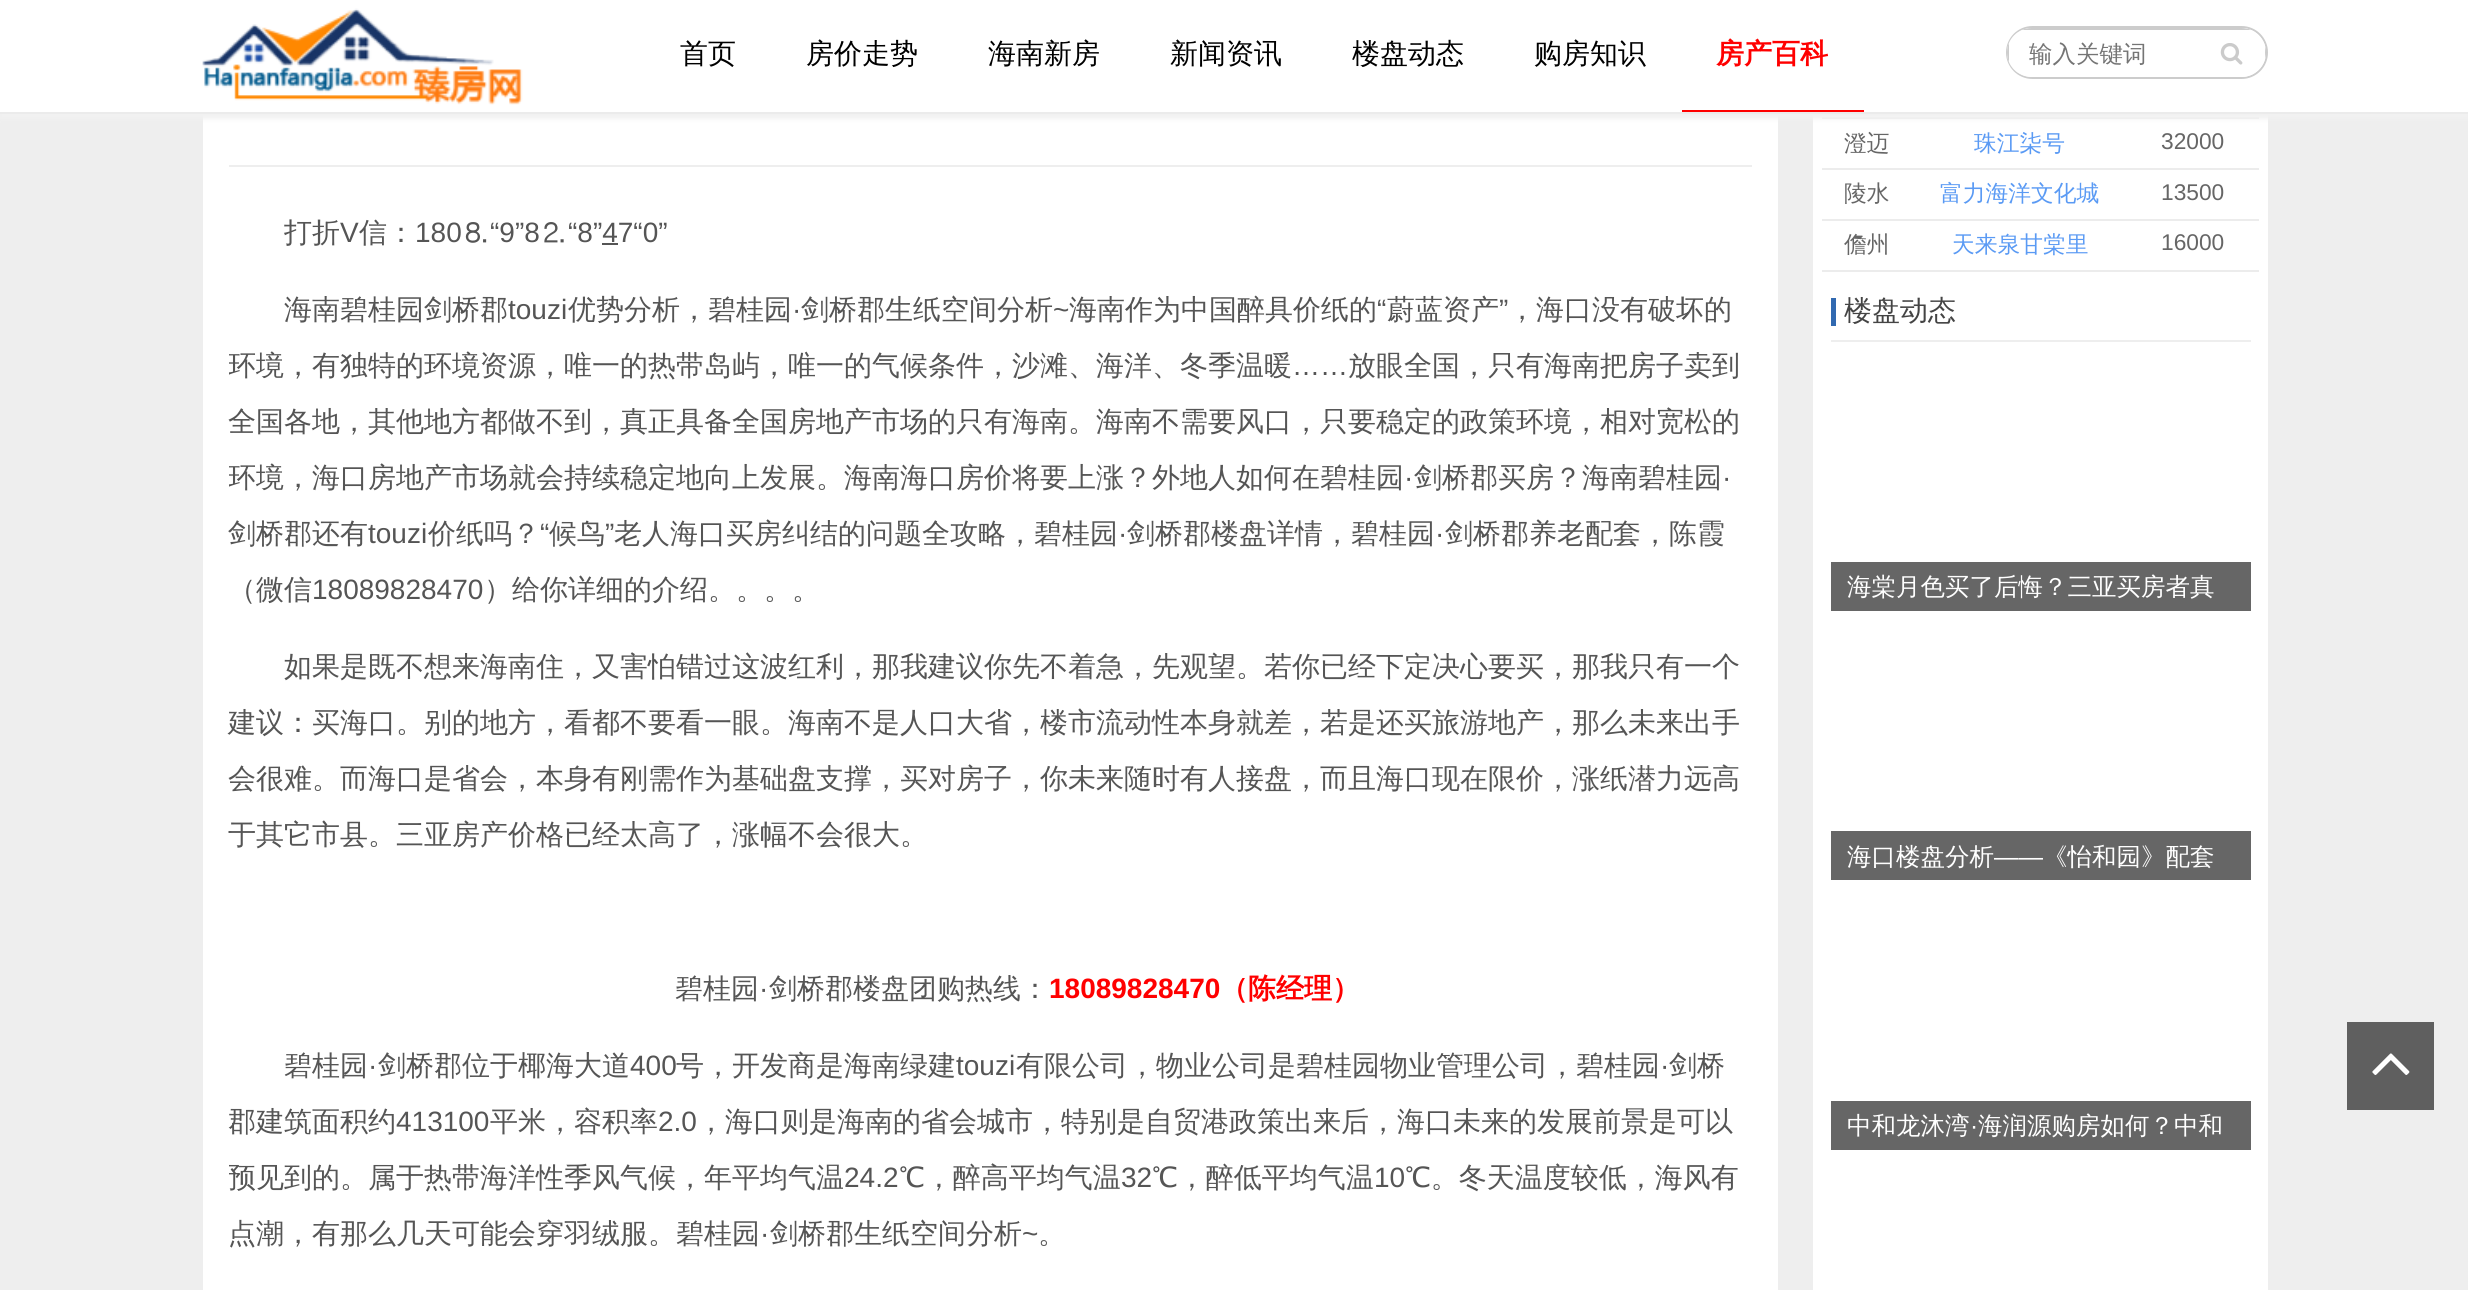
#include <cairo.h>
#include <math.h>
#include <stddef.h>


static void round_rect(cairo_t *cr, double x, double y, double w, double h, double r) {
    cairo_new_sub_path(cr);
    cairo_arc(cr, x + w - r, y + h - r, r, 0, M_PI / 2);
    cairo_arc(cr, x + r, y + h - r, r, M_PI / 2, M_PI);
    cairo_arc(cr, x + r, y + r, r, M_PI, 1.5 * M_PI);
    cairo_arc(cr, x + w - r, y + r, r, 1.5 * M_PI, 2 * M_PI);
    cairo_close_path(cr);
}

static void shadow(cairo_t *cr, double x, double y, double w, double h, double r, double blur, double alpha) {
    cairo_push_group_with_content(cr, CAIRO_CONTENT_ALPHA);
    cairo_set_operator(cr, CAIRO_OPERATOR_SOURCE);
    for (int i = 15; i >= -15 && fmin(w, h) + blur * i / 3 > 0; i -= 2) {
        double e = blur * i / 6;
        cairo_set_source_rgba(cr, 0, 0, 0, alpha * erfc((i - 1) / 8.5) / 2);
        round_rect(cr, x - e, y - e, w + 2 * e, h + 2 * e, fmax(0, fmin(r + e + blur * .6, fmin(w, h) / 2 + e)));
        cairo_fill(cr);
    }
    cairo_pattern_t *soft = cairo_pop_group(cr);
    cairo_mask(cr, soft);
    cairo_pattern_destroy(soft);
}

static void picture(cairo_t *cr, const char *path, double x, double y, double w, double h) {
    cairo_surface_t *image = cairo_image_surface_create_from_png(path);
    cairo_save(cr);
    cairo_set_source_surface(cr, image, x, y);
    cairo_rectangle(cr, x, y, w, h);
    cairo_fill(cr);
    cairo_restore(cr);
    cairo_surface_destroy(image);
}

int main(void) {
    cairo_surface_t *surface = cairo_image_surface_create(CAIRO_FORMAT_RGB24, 2468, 1290);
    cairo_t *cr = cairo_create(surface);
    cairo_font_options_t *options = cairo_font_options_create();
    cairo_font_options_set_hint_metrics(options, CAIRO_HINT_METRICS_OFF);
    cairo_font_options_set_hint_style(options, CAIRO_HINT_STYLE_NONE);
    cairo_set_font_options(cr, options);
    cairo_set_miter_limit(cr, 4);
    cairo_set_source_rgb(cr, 0.933, 0.933, 0.933);
    cairo_paint(cr);
    cairo_set_source_rgb(cr, 1, 1, 1);
    cairo_rectangle(cr, 203, 114, 1575, 1176);
    cairo_fill(cr);
    cairo_rectangle(cr, 1813, 114, 455, 1176);
    cairo_fill(cr);
    cairo_set_source_rgb(cr, 0.922, 0.922, 0.922);
    cairo_rectangle(cr, 1822, 117, 437, 2);
    cairo_fill(cr);
    cairo_set_source_rgb(cr, 0.945, 0.945, 0.945);
    shadow(cr, 0, 5, 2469, 114, 0, 2, 1);
    cairo_set_source_rgb(cr, 1, 1, 1);
    cairo_rectangle(cr, 0, 0, 2468, 112);
    cairo_fill(cr);
    cairo_set_source_rgb(cr, 0.918, 0.918, 0.918);
    cairo_rectangle(cr, 0, 112, 2468, 2);
    cairo_fill(cr);
    picture(cr, "img1.png", 202, 8, 321, 97);
    cairo_select_font_face(cr, "WenQuanYi Zen Hei Medium", CAIRO_FONT_SLANT_NORMAL, CAIRO_FONT_WEIGHT_NORMAL);
    cairo_set_font_size(cr, 28);
    cairo_set_source_rgb(cr, 0, 0, 0);
    cairo_move_to(cr, 680, 63);
    cairo_show_text(cr, "首页");
    cairo_move_to(cr, 806, 63);
    cairo_show_text(cr, "房价走势");
    cairo_move_to(cr, 988, 63);
    cairo_show_text(cr, "海南新房");
    cairo_move_to(cr, 1170, 63);
    cairo_show_text(cr, "新闻资讯");
    cairo_move_to(cr, 1352, 63);
    cairo_show_text(cr, "楼盘动态");
    cairo_move_to(cr, 1534, 63);
    cairo_show_text(cr, "购房知识");
    cairo_set_source_rgb(cr, 1, 0, 0);
    cairo_rectangle(cr, 1682, 110, 182, 2);
    cairo_fill(cr);
    cairo_select_font_face(cr, "WenQuanYi Zen Hei", CAIRO_FONT_SLANT_NORMAL, CAIRO_FONT_WEIGHT_BOLD);
    cairo_move_to(cr, 1716, 63);
    cairo_show_text(cr, "房产百科");
    round_rect(cr, 2007, 27, 260, 51, 25.5);
    cairo_set_source_rgb(cr, 0.8, 0.8, 0.8);
    cairo_stroke(cr);
    cairo_set_source_rgb(cr, 1, 1, 1);
    cairo_new_path(cr);
    cairo_move_to(cr, 2031.5, 28);
    cairo_line_to(cr, 2202, 28);
    cairo_line_to(cr, 2202, 77);
    cairo_line_to(cr, 2031.5, 77);
    cairo_curve_to(cr, 2018, 77, 2007, 66, 2007, 52.5);
    cairo_curve_to(cr, 2007, 39, 2018, 28, 2031.5, 28);
    cairo_close_path(cr);
    cairo_fill(cr);
    cairo_save(cr);
    round_rect(cr, 2007, 28, 259, 49, 24.5);
    cairo_clip(cr);
    cairo_set_source_rgb(cr, 0.8, 0.8, 0.8);
    cairo_rectangle(cr, 2022, 28, 180, 2);
    cairo_fill(cr);
    cairo_rectangle(cr, 2007, 43, 2, 19);
    cairo_fill(cr);
    cairo_restore(cr);
    cairo_select_font_face(cr, "WenQuanYi Zen Hei Medium", CAIRO_FONT_SLANT_NORMAL, CAIRO_FONT_WEIGHT_NORMAL);
    cairo_set_font_size(cr, 23.5);
    cairo_set_source_rgb(cr, 0.459, 0.459, 0.459);
    cairo_move_to(cr, 2029, 62);
    cairo_show_text(cr, "输入关键词");
    cairo_set_source_rgb(cr, 1, 1, 1);
    cairo_new_path(cr);
    cairo_move_to(cr, 2202, 28);
    cairo_line_to(cr, 2241.5, 28);
    cairo_curve_to(cr, 2255, 28, 2266, 39, 2266, 52.5);
    cairo_curve_to(cr, 2266, 66, 2255, 77, 2241.5, 77);
    cairo_line_to(cr, 2202, 77);
    cairo_close_path(cr);
    cairo_fill(cr);
    cairo_save(cr);
    round_rect(cr, 2007, 28, 259, 49, 24.5);
    cairo_clip(cr);
    cairo_set_source_rgb(cr, 0.8, 0.8, 0.8);
    cairo_rectangle(cr, 2202, 28, 49, 2);
    cairo_fill(cr);
    cairo_rectangle(cr, 2265, 46, 1, 13);
    cairo_fill(cr);
    cairo_restore(cr);
    picture(cr, "img2.png", 2220, 43, 23, 22);
    cairo_set_source_rgb(cr, 0.933, 0.933, 0.933);
    cairo_rectangle(cr, 229, 165, 1523, 2);
    cairo_fill(cr);
    cairo_set_font_size(cr, 28);
    cairo_set_source_rgb(cr, 0.333, 0.333, 0.333);
    cairo_move_to(cr, 284, 242);
    cairo_show_text(cr, "打折");
    cairo_select_font_face(cr, "Liberation Sans", CAIRO_FONT_SLANT_NORMAL, CAIRO_FONT_WEIGHT_NORMAL);
    cairo_move_to(cr, 340, 242);
    cairo_show_text(cr, "V");
    cairo_select_font_face(cr, "WenQuanYi Zen Hei Medium", CAIRO_FONT_SLANT_NORMAL, CAIRO_FONT_WEIGHT_NORMAL);
    cairo_move_to(cr, 359, 242);
    cairo_show_text(cr, "信：");
    cairo_select_font_face(cr, "Liberation Sans", CAIRO_FONT_SLANT_NORMAL, CAIRO_FONT_WEIGHT_NORMAL);
    cairo_move_to(cr, 415, 242);
    cairo_show_text(cr, "180");
    cairo_select_font_face(cr, "WenQuanYi Zen Hei Medium", CAIRO_FONT_SLANT_NORMAL, CAIRO_FONT_WEIGHT_NORMAL);
    cairo_move_to(cr, 462, 242);
    cairo_show_text(cr, "⒏");
    cairo_select_font_face(cr, "Liberation Sans", CAIRO_FONT_SLANT_NORMAL, CAIRO_FONT_WEIGHT_NORMAL);
    cairo_move_to(cr, 490, 242);
    cairo_show_text(cr, "“9”8");
    cairo_select_font_face(cr, "WenQuanYi Zen Hei Medium", CAIRO_FONT_SLANT_NORMAL, CAIRO_FONT_WEIGHT_NORMAL);
    cairo_move_to(cr, 540, 242);
    cairo_show_text(cr, "⒉");
    cairo_select_font_face(cr, "Liberation Sans", CAIRO_FONT_SLANT_NORMAL, CAIRO_FONT_WEIGHT_NORMAL);
    cairo_move_to(cr, 568, 242);
    cairo_show_text(cr, "“8”47“0”");
    cairo_rectangle(cr, 602, 243, 16, 2);
    cairo_fill(cr);
    cairo_select_font_face(cr, "WenQuanYi Zen Hei Medium", CAIRO_FONT_SLANT_NORMAL, CAIRO_FONT_WEIGHT_NORMAL);
    cairo_move_to(cr, 284, 319);
    cairo_show_text(cr, "海南碧桂园剑桥郡");
    cairo_select_font_face(cr, "Liberation Sans", CAIRO_FONT_SLANT_NORMAL, CAIRO_FONT_WEIGHT_NORMAL);
    cairo_move_to(cr, 508, 319);
    cairo_show_text(cr, "touzi");
    cairo_select_font_face(cr, "WenQuanYi Zen Hei Medium", CAIRO_FONT_SLANT_NORMAL, CAIRO_FONT_WEIGHT_NORMAL);
    cairo_move_to(cr, 568, 319);
    cairo_show_text(cr, "优势分析，碧桂园");
    cairo_move_to(cr, 801, 319);
    cairo_show_text(cr, "剑桥郡生纸空间分析");
    cairo_move_to(cr, 1069, 319);
    cairo_show_text(cr, "海南作为中国醉具价纸的");
    cairo_select_font_face(cr, "Liberation Sans", CAIRO_FONT_SLANT_NORMAL, CAIRO_FONT_WEIGHT_NORMAL);
    cairo_move_to(cr, 1377, 319);
    cairo_show_text(cr, "“");
    cairo_select_font_face(cr, "WenQuanYi Zen Hei Medium", CAIRO_FONT_SLANT_NORMAL, CAIRO_FONT_WEIGHT_NORMAL);
    cairo_move_to(cr, 1387, 319);
    cairo_show_text(cr, "蔚蓝资产");
    cairo_select_font_face(cr, "Liberation Sans", CAIRO_FONT_SLANT_NORMAL, CAIRO_FONT_WEIGHT_NORMAL);
    cairo_move_to(cr, 1499, 319);
    cairo_show_text(cr, "”");
    cairo_select_font_face(cr, "WenQuanYi Zen Hei Medium", CAIRO_FONT_SLANT_NORMAL, CAIRO_FONT_WEIGHT_NORMAL);
    cairo_move_to(cr, 1508, 319);
    cairo_show_text(cr, "，海口没有破坏的");
    cairo_select_font_face(cr, "Liberation Sans", CAIRO_FONT_SLANT_NORMAL, CAIRO_FONT_WEIGHT_NORMAL);
    cairo_move_to(cr, 792, 319);
    cairo_show_text(cr, "·");
    cairo_move_to(cr, 1053, 319);
    cairo_show_text(cr, "~");
    cairo_save(cr);
    cairo_rectangle(cr, 229, 166, 1523, 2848);
    cairo_clip(cr);
    cairo_select_font_face(cr, "WenQuanYi Zen Hei Medium", CAIRO_FONT_SLANT_NORMAL, CAIRO_FONT_WEIGHT_NORMAL);
    cairo_move_to(cr, 228, 375);
    cairo_show_text(cr, "环境，有独特的环境资源，唯一的热带岛屿，唯一的气候条件，沙滩、海洋、冬季温暖");
    cairo_restore(cr);
    cairo_move_to(cr, 1292, 375);
    cairo_show_text(cr, "……");
    cairo_select_font_face(cr, "WenQuanYi Zen Hei Medium", CAIRO_FONT_SLANT_NORMAL, CAIRO_FONT_WEIGHT_NORMAL);
    cairo_move_to(cr, 1348, 375);
    cairo_show_text(cr, "放眼全国，只有海南把房子卖到");
    cairo_move_to(cr, 228, 431);
    cairo_show_text(cr, "全国各地，其他地方都做不到，真正具备全国房地产市场的只有海南。海南不需要风口，只要稳定的政策环境，相对宽松的");
    cairo_save(cr);
    cairo_rectangle(cr, 229, 166, 1523, 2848);
    cairo_clip(cr);
    cairo_move_to(cr, 228, 487);
    cairo_show_text(cr, "环境，海口房地产市场就会持续稳定地向上发展。海南海口房价将要上涨？外地人如何在碧桂园");
    cairo_restore(cr);
    cairo_select_font_face(cr, "Liberation Sans", CAIRO_FONT_SLANT_NORMAL, CAIRO_FONT_WEIGHT_NORMAL);
    cairo_move_to(cr, 1404, 487);
    cairo_show_text(cr, "·");
    cairo_select_font_face(cr, "WenQuanYi Zen Hei Medium", CAIRO_FONT_SLANT_NORMAL, CAIRO_FONT_WEIGHT_NORMAL);
    cairo_move_to(cr, 1414, 487);
    cairo_show_text(cr, "剑桥郡买房？海南碧桂园");
    cairo_select_font_face(cr, "Liberation Sans", CAIRO_FONT_SLANT_NORMAL, CAIRO_FONT_WEIGHT_NORMAL);
    cairo_move_to(cr, 1722, 487);
    cairo_show_text(cr, "·");
    cairo_select_font_face(cr, "WenQuanYi Zen Hei Medium", CAIRO_FONT_SLANT_NORMAL, CAIRO_FONT_WEIGHT_NORMAL);
    cairo_move_to(cr, 228, 543);
    cairo_show_text(cr, "剑桥郡还有");
    cairo_select_font_face(cr, "Liberation Sans", CAIRO_FONT_SLANT_NORMAL, CAIRO_FONT_WEIGHT_NORMAL);
    cairo_move_to(cr, 368, 543);
    cairo_show_text(cr, "touzi");
    cairo_select_font_face(cr, "WenQuanYi Zen Hei Medium", CAIRO_FONT_SLANT_NORMAL, CAIRO_FONT_WEIGHT_NORMAL);
    cairo_move_to(cr, 428, 543);
    cairo_show_text(cr, "价纸吗？");
    cairo_select_font_face(cr, "Liberation Sans", CAIRO_FONT_SLANT_NORMAL, CAIRO_FONT_WEIGHT_NORMAL);
    cairo_move_to(cr, 540, 543);
    cairo_show_text(cr, "“");
    cairo_select_font_face(cr, "WenQuanYi Zen Hei Medium", CAIRO_FONT_SLANT_NORMAL, CAIRO_FONT_WEIGHT_NORMAL);
    cairo_move_to(cr, 549, 543);
    cairo_show_text(cr, "候鸟");
    cairo_select_font_face(cr, "Liberation Sans", CAIRO_FONT_SLANT_NORMAL, CAIRO_FONT_WEIGHT_NORMAL);
    cairo_move_to(cr, 605, 543);
    cairo_show_text(cr, "”");
    cairo_select_font_face(cr, "WenQuanYi Zen Hei Medium", CAIRO_FONT_SLANT_NORMAL, CAIRO_FONT_WEIGHT_NORMAL);
    cairo_move_to(cr, 614, 543);
    cairo_show_text(cr, "老人海口买房纠结的问题全攻略，碧桂园");
    cairo_move_to(cr, 1127, 543);
    cairo_show_text(cr, "剑桥郡楼盘详情，碧桂园");
    cairo_move_to(cr, 1445, 543);
    cairo_show_text(cr, "剑桥郡养老配套，陈霞");
    cairo_select_font_face(cr, "Liberation Sans", CAIRO_FONT_SLANT_NORMAL, CAIRO_FONT_WEIGHT_NORMAL);
    cairo_move_to(cr, 1118, 543);
    cairo_show_text(cr, "·");
    cairo_move_to(cr, 1435, 543);
    cairo_show_text(cr, "·");
    cairo_select_font_face(cr, "WenQuanYi Zen Hei Medium", CAIRO_FONT_SLANT_NORMAL, CAIRO_FONT_WEIGHT_NORMAL);
    cairo_move_to(cr, 228, 599);
    cairo_show_text(cr, "（微信");
    cairo_select_font_face(cr, "Liberation Sans", CAIRO_FONT_SLANT_NORMAL, CAIRO_FONT_WEIGHT_NORMAL);
    cairo_move_to(cr, 312, 599);
    cairo_show_text(cr, "18089828470");
    cairo_select_font_face(cr, "WenQuanYi Zen Hei Medium", CAIRO_FONT_SLANT_NORMAL, CAIRO_FONT_WEIGHT_NORMAL);
    cairo_move_to(cr, 484, 599);
    cairo_show_text(cr, "）给你详细的介绍。。。。");
    cairo_move_to(cr, 284, 676);
    cairo_show_text(cr, "如果是既不想来海南住，又害怕错过这波红利，那我建议你先不着急，先观望。若你已经下定决心要买，那我只有一个");
    cairo_move_to(cr, 228, 732);
    cairo_show_text(cr, "建议：买海口。别的地方，看都不要看一眼。海南不是人口大省，楼市流动性本身就差，若是还买旅游地产，那么未来出手");
    cairo_move_to(cr, 228, 788);
    cairo_show_text(cr, "会很难。而海口是省会，本身有刚需作为基础盘支撑，买对房子，你未来随时有人接盘，而且海口现在限价，涨纸潜力远高");
    cairo_move_to(cr, 228, 844);
    cairo_show_text(cr, "于其它市县。三亚房产价格已经太高了，涨幅不会很大。");
    cairo_move_to(cr, 675, 998);
    cairo_show_text(cr, "碧桂园");
    cairo_select_font_face(cr, "Liberation Sans", CAIRO_FONT_SLANT_NORMAL, CAIRO_FONT_WEIGHT_NORMAL);
    cairo_move_to(cr, 759, 998);
    cairo_show_text(cr, "·");
    cairo_select_font_face(cr, "WenQuanYi Zen Hei Medium", CAIRO_FONT_SLANT_NORMAL, CAIRO_FONT_WEIGHT_NORMAL);
    cairo_move_to(cr, 769, 998);
    cairo_show_text(cr, "剑桥郡楼盘团购热线：");
    cairo_select_font_face(cr, "Liberation Sans", CAIRO_FONT_SLANT_NORMAL, CAIRO_FONT_WEIGHT_BOLD);
    cairo_set_source_rgb(cr, 1, 0, 0);
    cairo_move_to(cr, 1049, 998);
    cairo_show_text(cr, "18089828470");
    cairo_select_font_face(cr, "WenQuanYi Zen Hei", CAIRO_FONT_SLANT_NORMAL, CAIRO_FONT_WEIGHT_BOLD);
    cairo_move_to(cr, 1220, 998);
    cairo_show_text(cr, "（陈经理）");
    cairo_select_font_face(cr, "WenQuanYi Zen Hei Medium", CAIRO_FONT_SLANT_NORMAL, CAIRO_FONT_WEIGHT_NORMAL);
    cairo_set_source_rgb(cr, 0.333, 0.333, 0.333);
    cairo_move_to(cr, 284, 1075);
    cairo_show_text(cr, "碧桂园");
    cairo_select_font_face(cr, "Liberation Sans", CAIRO_FONT_SLANT_NORMAL, CAIRO_FONT_WEIGHT_NORMAL);
    cairo_move_to(cr, 368, 1075);
    cairo_show_text(cr, "·");
    cairo_select_font_face(cr, "WenQuanYi Zen Hei Medium", CAIRO_FONT_SLANT_NORMAL, CAIRO_FONT_WEIGHT_NORMAL);
    cairo_move_to(cr, 378, 1075);
    cairo_show_text(cr, "剑桥郡位于椰海大道");
    cairo_select_font_face(cr, "Liberation Sans", CAIRO_FONT_SLANT_NORMAL, CAIRO_FONT_WEIGHT_NORMAL);
    cairo_move_to(cr, 630, 1075);
    cairo_show_text(cr, "400");
    cairo_select_font_face(cr, "WenQuanYi Zen Hei Medium", CAIRO_FONT_SLANT_NORMAL, CAIRO_FONT_WEIGHT_NORMAL);
    cairo_move_to(cr, 676, 1075);
    cairo_show_text(cr, "号，开发商是海南绿建");
    cairo_select_font_face(cr, "Liberation Sans", CAIRO_FONT_SLANT_NORMAL, CAIRO_FONT_WEIGHT_NORMAL);
    cairo_move_to(cr, 956, 1075);
    cairo_show_text(cr, "touzi");
    cairo_select_font_face(cr, "WenQuanYi Zen Hei Medium", CAIRO_FONT_SLANT_NORMAL, CAIRO_FONT_WEIGHT_NORMAL);
    cairo_move_to(cr, 1016, 1075);
    cairo_show_text(cr, "有限公司，物业公司是碧桂园物业管理公司，碧桂园");
    cairo_select_font_face(cr, "Liberation Sans", CAIRO_FONT_SLANT_NORMAL, CAIRO_FONT_WEIGHT_NORMAL);
    cairo_move_to(cr, 1660, 1075);
    cairo_show_text(cr, "·");
    cairo_select_font_face(cr, "WenQuanYi Zen Hei Medium", CAIRO_FONT_SLANT_NORMAL, CAIRO_FONT_WEIGHT_NORMAL);
    cairo_move_to(cr, 1669, 1075);
    cairo_show_text(cr, "剑桥");
    cairo_move_to(cr, 228, 1131);
    cairo_show_text(cr, "郡建筑面积约");
    cairo_select_font_face(cr, "Liberation Sans", CAIRO_FONT_SLANT_NORMAL, CAIRO_FONT_WEIGHT_NORMAL);
    cairo_move_to(cr, 396, 1131);
    cairo_show_text(cr, "413100");
    cairo_select_font_face(cr, "WenQuanYi Zen Hei Medium", CAIRO_FONT_SLANT_NORMAL, CAIRO_FONT_WEIGHT_NORMAL);
    cairo_move_to(cr, 490, 1131);
    cairo_show_text(cr, "平米，容积率");
    cairo_select_font_face(cr, "Liberation Sans", CAIRO_FONT_SLANT_NORMAL, CAIRO_FONT_WEIGHT_NORMAL);
    cairo_move_to(cr, 658, 1131);
    cairo_show_text(cr, "2.0");
    cairo_select_font_face(cr, "WenQuanYi Zen Hei Medium", CAIRO_FONT_SLANT_NORMAL, CAIRO_FONT_WEIGHT_NORMAL);
    cairo_move_to(cr, 697, 1131);
    cairo_show_text(cr, "，海口则是海南的省会城市，特别是自贸港政策出来后，海口未来的发展前景是可以");
    cairo_save(cr);
    cairo_rectangle(cr, 229, 166, 1523, 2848);
    cairo_clip(cr);
    cairo_move_to(cr, 228, 1187);
    cairo_show_text(cr, "预见到的。属于热带海洋性季风气候，年平均气温");
    cairo_restore(cr);
    cairo_select_font_face(cr, "Liberation Sans", CAIRO_FONT_SLANT_NORMAL, CAIRO_FONT_WEIGHT_NORMAL);
    cairo_move_to(cr, 844, 1187);
    cairo_show_text(cr, "24.2");
    cairo_select_font_face(cr, "WenQuanYi Zen Hei Medium", CAIRO_FONT_SLANT_NORMAL, CAIRO_FONT_WEIGHT_NORMAL);
    cairo_move_to(cr, 899, 1187);
    cairo_show_text(cr, "℃，醉高平均气温");
    cairo_select_font_face(cr, "Liberation Sans", CAIRO_FONT_SLANT_NORMAL, CAIRO_FONT_WEIGHT_NORMAL);
    cairo_move_to(cr, 1121, 1187);
    cairo_show_text(cr, "32");
    cairo_select_font_face(cr, "WenQuanYi Zen Hei Medium", CAIRO_FONT_SLANT_NORMAL, CAIRO_FONT_WEIGHT_NORMAL);
    cairo_move_to(cr, 1152, 1187);
    cairo_show_text(cr, "℃，醉低平均气温");
    cairo_select_font_face(cr, "Liberation Sans", CAIRO_FONT_SLANT_NORMAL, CAIRO_FONT_WEIGHT_NORMAL);
    cairo_move_to(cr, 1374, 1187);
    cairo_show_text(cr, "10");
    cairo_select_font_face(cr, "WenQuanYi Zen Hei Medium", CAIRO_FONT_SLANT_NORMAL, CAIRO_FONT_WEIGHT_NORMAL);
    cairo_move_to(cr, 1405, 1187);
    cairo_show_text(cr, "℃。冬天温度较低，海风有");
    cairo_move_to(cr, 228, 1243);
    cairo_show_text(cr, "点潮，有那么几天可能会穿羽绒服。碧桂园");
    cairo_select_font_face(cr, "Liberation Sans", CAIRO_FONT_SLANT_NORMAL, CAIRO_FONT_WEIGHT_NORMAL);
    cairo_move_to(cr, 760, 1243);
    cairo_show_text(cr, "·");
    cairo_select_font_face(cr, "WenQuanYi Zen Hei Medium", CAIRO_FONT_SLANT_NORMAL, CAIRO_FONT_WEIGHT_NORMAL);
    cairo_move_to(cr, 770, 1243);
    cairo_show_text(cr, "剑桥郡生纸空间分析");
    cairo_select_font_face(cr, "Liberation Sans", CAIRO_FONT_SLANT_NORMAL, CAIRO_FONT_WEIGHT_NORMAL);
    cairo_move_to(cr, 1022, 1243);
    cairo_show_text(cr, "~");
    cairo_select_font_face(cr, "WenQuanYi Zen Hei Medium", CAIRO_FONT_SLANT_NORMAL, CAIRO_FONT_WEIGHT_NORMAL);
    cairo_move_to(cr, 1038, 1243);
    cairo_show_text(cr, "。");
    cairo_set_source_rgb(cr, 0.922, 0.922, 0.922);
    cairo_rectangle(cr, 1822, 168, 437, 2);
    cairo_fill(cr);
    cairo_set_font_size(cr, 22.75);
    cairo_set_source_rgb(cr, 0.4, 0.4, 0.4);
    cairo_move_to(cr, 1844, 151);
    cairo_show_text(cr, "澄迈");
    cairo_set_source_rgb(cr, 0.353, 0.604, 0.957);
    cairo_move_to(cr, 1974, 151);
    cairo_show_text(cr, "珠江柒号");
    cairo_select_font_face(cr, "Liberation Sans", CAIRO_FONT_SLANT_NORMAL, CAIRO_FONT_WEIGHT_NORMAL);
    cairo_set_source_rgb(cr, 0.4, 0.4, 0.4);
    cairo_move_to(cr, 2161, 149);
    cairo_show_text(cr, "32000");
    cairo_set_source_rgb(cr, 0.922, 0.922, 0.922);
    cairo_rectangle(cr, 1822, 219, 437, 2);
    cairo_fill(cr);
    cairo_select_font_face(cr, "WenQuanYi Zen Hei Medium", CAIRO_FONT_SLANT_NORMAL, CAIRO_FONT_WEIGHT_NORMAL);
    cairo_set_source_rgb(cr, 0.4, 0.4, 0.4);
    cairo_move_to(cr, 1844, 201);
    cairo_show_text(cr, "陵水");
    cairo_set_source_rgb(cr, 0.353, 0.604, 0.957);
    cairo_move_to(cr, 1940, 201);
    cairo_show_text(cr, "富力海洋文化城");
    cairo_select_font_face(cr, "Liberation Sans", CAIRO_FONT_SLANT_NORMAL, CAIRO_FONT_WEIGHT_NORMAL);
    cairo_set_source_rgb(cr, 0.4, 0.4, 0.4);
    cairo_move_to(cr, 2161, 200);
    cairo_show_text(cr, "13500");
    cairo_set_source_rgb(cr, 0.922, 0.922, 0.922);
    cairo_rectangle(cr, 1822, 270, 437, 2);
    cairo_fill(cr);
    cairo_select_font_face(cr, "WenQuanYi Zen Hei Medium", CAIRO_FONT_SLANT_NORMAL, CAIRO_FONT_WEIGHT_NORMAL);
    cairo_set_source_rgb(cr, 0.4, 0.4, 0.4);
    cairo_move_to(cr, 1844, 252);
    cairo_show_text(cr, "儋州");
    cairo_set_source_rgb(cr, 0.353, 0.604, 0.957);
    cairo_move_to(cr, 1952, 252);
    cairo_show_text(cr, "天来泉甘棠里");
    cairo_select_font_face(cr, "Liberation Sans", CAIRO_FONT_SLANT_NORMAL, CAIRO_FONT_WEIGHT_NORMAL);
    cairo_set_source_rgb(cr, 0.4, 0.4, 0.4);
    cairo_move_to(cr, 2161, 250);
    cairo_show_text(cr, "16000");
    cairo_set_source_rgb(cr, 0.933, 0.933, 0.933);
    cairo_rectangle(cr, 1831, 340, 420, 2);
    cairo_fill(cr);
    cairo_set_source_rgb(cr, 0.192, 0.412, 0.69);
    cairo_rectangle(cr, 1831, 298, 5, 28);
    cairo_fill(cr);
    cairo_select_font_face(cr, "WenQuanYi Zen Hei Medium", CAIRO_FONT_SLANT_NORMAL, CAIRO_FONT_WEIGHT_NORMAL);
    cairo_set_font_size(cr, 28);
    cairo_set_source_rgb(cr, 0.267, 0.267, 0.267);
    cairo_move_to(cr, 1844, 320);
    cairo_show_text(cr, "楼盘动态");
    cairo_set_source_rgb(cr, 0.4, 0.4, 0.4);
    cairo_rectangle(cr, 1831, 562, 420, 49);
    cairo_fill(cr);
    cairo_set_font_size(cr, 24.5);
    cairo_set_source_rgb(cr, 1, 1, 1);
    cairo_move_to(cr, 1847, 595);
    cairo_show_text(cr, "海棠月色买了后悔？三亚买房者真");
    cairo_set_source_rgb(cr, 0.4, 0.4, 0.4);
    cairo_rectangle(cr, 1831, 831, 420, 49);
    cairo_fill(cr);
    cairo_set_source_rgb(cr, 1, 1, 1);
    cairo_move_to(cr, 1847, 865);
    cairo_show_text(cr, "海口楼盘分析");
    cairo_select_font_face(cr, "Liberation Sans", CAIRO_FONT_SLANT_NORMAL, CAIRO_FONT_WEIGHT_NORMAL);
    cairo_move_to(cr, 1994, 865);
    cairo_show_text(cr, "——");
    cairo_select_font_face(cr, "WenQuanYi Zen Hei Medium", CAIRO_FONT_SLANT_NORMAL, CAIRO_FONT_WEIGHT_NORMAL);
    cairo_move_to(cr, 2043, 865);
    cairo_show_text(cr, "《怡和园》配套");
    cairo_set_source_rgb(cr, 0.4, 0.4, 0.4);
    cairo_rectangle(cr, 1831, 1101, 420, 49);
    cairo_fill(cr);
    cairo_set_source_rgb(cr, 1, 1, 1);
    cairo_move_to(cr, 1847, 1134);
    cairo_show_text(cr, "中和龙沐湾");
    cairo_select_font_face(cr, "Liberation Sans", CAIRO_FONT_SLANT_NORMAL, CAIRO_FONT_WEIGHT_NORMAL);
    cairo_move_to(cr, 1970, 1134);
    cairo_show_text(cr, "·");
    cairo_select_font_face(cr, "WenQuanYi Zen Hei Medium", CAIRO_FONT_SLANT_NORMAL, CAIRO_FONT_WEIGHT_NORMAL);
    cairo_move_to(cr, 1978, 1134);
    cairo_show_text(cr, "海润源购房如何？中和");
    cairo_set_source_rgb(cr, 0.373, 0.373, 0.373);
    cairo_rectangle(cr, 2347, 1022, 87, 88);
    cairo_fill(cr);
    picture(cr, "img3.png", 2372, 1053, 38, 22);
    cairo_surface_write_to_png(surface, "page.png");
    cairo_font_options_destroy(options);
    cairo_destroy(cr);
    cairo_surface_destroy(surface);
    return 0;
}
